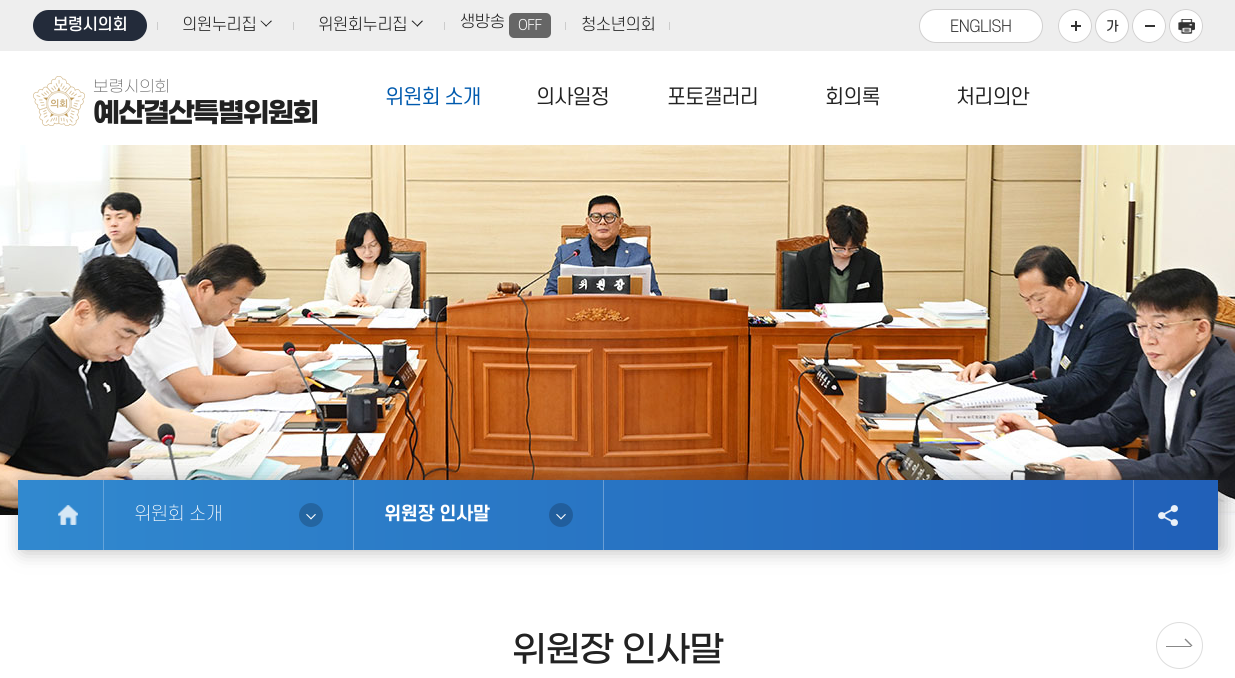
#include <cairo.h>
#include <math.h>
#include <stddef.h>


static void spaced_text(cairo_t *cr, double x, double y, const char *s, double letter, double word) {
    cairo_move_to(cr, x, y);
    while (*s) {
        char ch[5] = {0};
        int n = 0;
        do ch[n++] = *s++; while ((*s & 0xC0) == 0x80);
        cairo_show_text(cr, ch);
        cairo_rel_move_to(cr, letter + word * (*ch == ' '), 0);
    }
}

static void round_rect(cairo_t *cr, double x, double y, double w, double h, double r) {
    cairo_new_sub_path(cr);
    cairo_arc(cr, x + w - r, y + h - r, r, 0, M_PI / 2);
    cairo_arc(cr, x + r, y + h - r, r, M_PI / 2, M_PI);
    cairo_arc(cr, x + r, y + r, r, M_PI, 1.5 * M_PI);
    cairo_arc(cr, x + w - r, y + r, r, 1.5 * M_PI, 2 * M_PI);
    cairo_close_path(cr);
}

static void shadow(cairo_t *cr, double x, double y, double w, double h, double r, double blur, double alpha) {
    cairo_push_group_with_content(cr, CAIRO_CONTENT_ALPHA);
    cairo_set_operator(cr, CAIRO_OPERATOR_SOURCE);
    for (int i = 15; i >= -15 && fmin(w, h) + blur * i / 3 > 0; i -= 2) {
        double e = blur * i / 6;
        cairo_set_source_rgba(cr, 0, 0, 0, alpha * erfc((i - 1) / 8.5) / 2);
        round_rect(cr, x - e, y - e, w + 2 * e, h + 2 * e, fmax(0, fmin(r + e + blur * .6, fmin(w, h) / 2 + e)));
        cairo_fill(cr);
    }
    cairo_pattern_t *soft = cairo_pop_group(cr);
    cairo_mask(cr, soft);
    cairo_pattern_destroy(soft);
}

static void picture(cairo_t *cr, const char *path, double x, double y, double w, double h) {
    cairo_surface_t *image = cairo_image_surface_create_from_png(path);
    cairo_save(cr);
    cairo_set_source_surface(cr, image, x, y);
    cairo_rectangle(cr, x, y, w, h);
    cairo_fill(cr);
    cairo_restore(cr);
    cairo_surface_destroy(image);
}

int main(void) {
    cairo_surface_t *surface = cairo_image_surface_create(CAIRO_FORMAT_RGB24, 1235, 678);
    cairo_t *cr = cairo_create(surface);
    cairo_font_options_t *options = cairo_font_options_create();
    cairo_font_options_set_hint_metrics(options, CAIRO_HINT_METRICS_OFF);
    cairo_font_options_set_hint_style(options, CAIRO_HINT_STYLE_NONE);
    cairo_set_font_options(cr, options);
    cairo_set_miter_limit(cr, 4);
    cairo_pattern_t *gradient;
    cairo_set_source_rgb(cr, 1, 1, 1);
    cairo_paint(cr);
    cairo_set_source_rgb(cr, 0.933, 0.933, 0.933);
    cairo_rectangle(cr, 0, 0, 1235, 51);
    cairo_fill(cr);
    cairo_set_source_rgb(cr, 0.137, 0.169, 0.227);
    round_rect(cr, 33, 10, 114, 31, 15.5);
    cairo_fill(cr);
    cairo_select_font_face(cr, "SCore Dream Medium", CAIRO_FONT_SLANT_NORMAL, CAIRO_FONT_WEIGHT_NORMAL);
    cairo_set_font_size(cr, 16);
    cairo_set_source_rgb(cr, 1, 1, 1);
    spaced_text(cr, 53, 30, "보령시의회", -0.5, 0);
    cairo_set_source_rgb(cr, 0.8, 0.8, 0.8);
    cairo_rectangle(cr, 157, 22, 1, 8);
    cairo_fill(cr);
    cairo_select_font_face(cr, "SCore Dream Light", CAIRO_FONT_SLANT_NORMAL, CAIRO_FONT_WEIGHT_NORMAL);
    cairo_set_source_rgb(cr, 0.133, 0.133, 0.133);
    spaced_text(cr, 182, 30, "의원누리집", -0.5, 0);
    cairo_set_source_rgb(cr, 0.094, 0.094, 0.094);
    cairo_new_path(cr);
    cairo_move_to(cr, 266, 26.5);
    cairo_line_to(cr, 260.5, 21);
    cairo_line_to(cr, 261, 20.5);
    cairo_line_to(cr, 267, 26);
    cairo_close_path(cr);
    cairo_fill(cr);
    cairo_new_path(cr);
    cairo_move_to(cr, 266, 26.5);
    cairo_line_to(cr, 265.5, 26);
    cairo_line_to(cr, 271, 20.5);
    cairo_line_to(cr, 272, 21);
    cairo_close_path(cr);
    cairo_fill(cr);
    cairo_set_source_rgb(cr, 0.8, 0.8, 0.8);
    cairo_rectangle(cr, 293, 22, 1, 8);
    cairo_fill(cr);
    cairo_set_source_rgb(cr, 0.133, 0.133, 0.133);
    spaced_text(cr, 318, 30, "위원회누리집", -0.5, 0);
    cairo_set_source_rgb(cr, 0.094, 0.094, 0.094);
    cairo_new_path(cr);
    cairo_move_to(cr, 417.5, 26.5);
    cairo_line_to(cr, 411.5, 21);
    cairo_line_to(cr, 412.5, 20.5);
    cairo_line_to(cr, 418, 26);
    cairo_close_path(cr);
    cairo_fill(cr);
    cairo_new_path(cr);
    cairo_move_to(cr, 417.5, 26.5);
    cairo_line_to(cr, 416.5, 26);
    cairo_line_to(cr, 422, 20.5);
    cairo_line_to(cr, 423, 21);
    cairo_close_path(cr);
    cairo_fill(cr);
    cairo_set_source_rgb(cr, 0.8, 0.8, 0.8);
    cairo_rectangle(cr, 444, 22, 1, 8);
    cairo_fill(cr);
    cairo_set_source_rgb(cr, 0.133, 0.133, 0.133);
    spaced_text(cr, 460, 27, "생방송", -0.5, 0);
    cairo_set_source_rgb(cr, 0.4, 0.4, 0.4);
    round_rect(cr, 509, 13, 42, 25, 5);
    cairo_fill(cr);
    cairo_set_font_size(cr, 14);
    cairo_set_source_rgb(cr, 1, 1, 1);
    spaced_text(cr, 518, 30, "OFF", -0.5, 0);
    cairo_set_source_rgb(cr, 0.8, 0.8, 0.8);
    cairo_rectangle(cr, 565, 22, 1, 8);
    cairo_fill(cr);
    cairo_set_font_size(cr, 16);
    cairo_set_source_rgb(cr, 0.133, 0.133, 0.133);
    spaced_text(cr, 581, 30, "청소년의회", -0.5, 0);
    cairo_set_source_rgb(cr, 0.8, 0.8, 0.8);
    cairo_rectangle(cr, 669, 22, 1, 8);
    cairo_fill(cr);
    cairo_set_source_rgb(cr, 1, 1, 1);
    round_rect(cr, 919.5, 9.5, 123, 33, 16.5);
    cairo_fill_preserve(cr);
    cairo_set_source_rgb(cr, 0.82, 0.816, 0.816);
    cairo_set_line_width(cr, 1);
    cairo_stroke(cr);
    cairo_set_source_rgb(cr, 0.2, 0.2, 0.2);
    spaced_text(cr, 950, 32, "ENGLISH", -0.5, 0);
    cairo_set_source_rgb(cr, 1, 1, 1);
    cairo_new_path(cr);
    cairo_arc(cr, 1075, 26, 17, 0, 2 * M_PI);
    cairo_fill(cr);
    picture(cr, "img1.png", 1071, 21, 10, 10);
    cairo_arc(cr, 1075, 26, 16.5, 0, 2 * M_PI);
    cairo_set_source_rgb(cr, 0.82, 0.816, 0.816);
    cairo_stroke(cr);
    cairo_set_source_rgb(cr, 1, 1, 1);
    cairo_arc(cr, 1112, 26, 16.5, 0, 2 * M_PI);
    cairo_fill_preserve(cr);
    cairo_set_source_rgb(cr, 0.82, 0.816, 0.816);
    cairo_stroke(cr);
    cairo_select_font_face(cr, "SCore Dream Medium", CAIRO_FONT_SLANT_NORMAL, CAIRO_FONT_WEIGHT_NORMAL);
    cairo_set_font_size(cr, 13);
    cairo_set_source_rgb(cr, 0.2, 0.2, 0.2);
    spaced_text(cr, 1106, 31, "가", -0.5, 0);
    cairo_set_source_rgb(cr, 1, 1, 1);
    cairo_new_path(cr);
    cairo_arc(cr, 1149, 26, 17, 0, 2 * M_PI);
    cairo_fill(cr);
    cairo_set_source_rgb(cr, 0.2, 0.2, 0.2);
    cairo_rectangle(cr, 1145, 25, 10, 2);
    cairo_fill(cr);
    cairo_arc(cr, 1149, 26, 16.5, 0, 2 * M_PI);
    cairo_set_source_rgb(cr, 0.82, 0.816, 0.816);
    cairo_stroke(cr);
    cairo_set_source_rgb(cr, 1, 1, 1);
    cairo_arc(cr, 1186, 26, 17, 0, 2 * M_PI);
    cairo_fill(cr);
    picture(cr, "img2.png", 1178, 19, 17, 15);
    cairo_arc(cr, 1186, 26, 16.5, 0, 2 * M_PI);
    cairo_set_source_rgb(cr, 0.82, 0.816, 0.816);
    cairo_stroke(cr);
    picture(cr, "img3.png", 33, 76, 52, 50);
    cairo_select_font_face(cr, "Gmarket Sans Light", CAIRO_FONT_SLANT_NORMAL, CAIRO_FONT_WEIGHT_NORMAL);
    cairo_set_font_size(cr, 16);
    cairo_set_source_rgb(cr, 0.4, 0.4, 0.4);
    cairo_move_to(cr, 93, 91);
    cairo_show_text(cr, "보령시의회");
    cairo_select_font_face(cr, "Gmarket Sans", CAIRO_FONT_SLANT_NORMAL, CAIRO_FONT_WEIGHT_BOLD);
    cairo_set_font_size(cr, 28);
    cairo_set_source_rgb(cr, 0.133, 0.133, 0.133);
    spaced_text(cr, 93, 121, "예산결산특별위원회", -2, 0);
    cairo_select_font_face(cr, "SCore Dream", CAIRO_FONT_SLANT_NORMAL, CAIRO_FONT_WEIGHT_NORMAL);
    cairo_set_font_size(cr, 20);
    cairo_set_source_rgb(cr, 0, 0.353, 0.682);
    spaced_text(cr, 385, 104, "위원회 소개", -1, 0);
    cairo_set_source_rgb(cr, 0.133, 0.133, 0.133);
    spaced_text(cr, 536, 104, "의사일정", -1, 0);
    spaced_text(cr, 667, 104, "포토갤러리", -1, 0);
    spaced_text(cr, 825, 104, "회의록", -1, 0);
    spaced_text(cr, 956, 104, "처리의안", -1, 0);
    picture(cr, "img4.png", 0, 145, 1235, 370);
    cairo_set_source_rgb(cr, 0.251, 0.251, 0.251);
    shadow(cr, 23, 480, 1200, 70, 0, 10, 0.4);
    gradient = cairo_pattern_create_linear(18, 515, 1218, 515);
    cairo_pattern_add_color_stop_rgba(gradient, 0, 0.192, 0.537, 0.812, 1);
    cairo_pattern_add_color_stop_rgba(gradient, 0.5, 0.157, 0.455, 0.765, 1);
    cairo_pattern_add_color_stop_rgba(gradient, 1, 0.129, 0.376, 0.722, 1);
    cairo_set_source(cr, gradient);
    cairo_pattern_destroy(gradient);
    cairo_rectangle(cr, 18, 480, 1200, 70);
    cairo_fill(cr);
    picture(cr, "img5.png", 58, 505, 20, 20);
    cairo_set_source_rgb(cr, 0.392, 0.643, 0.855);
    cairo_rectangle(cr, 103, 480, 1, 70);
    cairo_fill(cr);
    cairo_set_source_rgb(cr, 0.42, 0.643, 0.851);
    cairo_rectangle(cr, 353, 480, 1, 70);
    cairo_fill(cr);
    cairo_select_font_face(cr, "SCore Dream ExtraLight", CAIRO_FONT_SLANT_NORMAL, CAIRO_FONT_WEIGHT_NORMAL);
    cairo_set_font_size(cr, 18);
    cairo_set_source_rgb(cr, 1, 1, 1);
    spaced_text(cr, 134, 520, "위원회 소개", -0.5, 0);
    cairo_set_source_rgb(cr, 0.141, 0.396, 0.631);
    cairo_new_path(cr);
    cairo_arc(cr, 311, 515, 12, 0, 2 * M_PI);
    cairo_fill(cr);
    cairo_set_source_rgb(cr, 1, 1, 1);
    cairo_new_path(cr);
    cairo_move_to(cr, 316, 514.5);
    cairo_line_to(cr, 311, 519.5);
    cairo_line_to(cr, 310.5, 518.5);
    cairo_line_to(cr, 315, 514);
    cairo_close_path(cr);
    cairo_fill(cr);
    cairo_new_path(cr);
    cairo_move_to(cr, 311.5, 518.5);
    cairo_line_to(cr, 311, 519.5);
    cairo_line_to(cr, 306, 514.5);
    cairo_line_to(cr, 307, 514);
    cairo_close_path(cr);
    cairo_fill(cr);
    cairo_set_source_rgb(cr, 0.412, 0.62, 0.835);
    cairo_rectangle(cr, 603, 480, 1, 70);
    cairo_fill(cr);
    cairo_select_font_face(cr, "SCore Dream", CAIRO_FONT_SLANT_NORMAL, CAIRO_FONT_WEIGHT_BOLD);
    cairo_set_source_rgb(cr, 1, 1, 1);
    spaced_text(cr, 384, 520, "위원장 인사말", -0.5, 0);
    cairo_set_source_rgb(cr, 0.129, 0.369, 0.616);
    cairo_new_path(cr);
    cairo_arc(cr, 561, 515, 12, 0, 2 * M_PI);
    cairo_fill(cr);
    cairo_set_source_rgb(cr, 1, 1, 1);
    cairo_new_path(cr);
    cairo_move_to(cr, 566, 514.5);
    cairo_line_to(cr, 561, 519.5);
    cairo_line_to(cr, 560.5, 518.5);
    cairo_line_to(cr, 565, 514);
    cairo_close_path(cr);
    cairo_fill(cr);
    cairo_new_path(cr);
    cairo_move_to(cr, 561.5, 518.5);
    cairo_line_to(cr, 561, 519.5);
    cairo_line_to(cr, 556, 514.5);
    cairo_line_to(cr, 557, 514);
    cairo_close_path(cr);
    cairo_fill(cr);
    picture(cr, "img6.png", 1158, 505, 20, 21);
    cairo_set_source_rgb(cr, 0.349, 0.541, 0.796);
    cairo_rectangle(cr, 1133, 480, 1, 70);
    cairo_fill(cr);
    cairo_select_font_face(cr, "Gmarket Sans Medium", CAIRO_FONT_SLANT_NORMAL, CAIRO_FONT_WEIGHT_NORMAL);
    cairo_set_font_size(cr, 36);
    cairo_set_source_rgb(cr, 0.133, 0.133, 0.133);
    spaced_text(cr, 512, 660, "위원장 인사말", -1, 0);
    cairo_new_path(cr);
    cairo_arc(cr, 1179.5, 645.5, 23, 0, 2 * M_PI);
    cairo_set_source_rgb(cr, 0.867, 0.867, 0.867);
    cairo_stroke(cr);
    cairo_set_source_rgb(cr, 0.533, 0.533, 0.533);
    cairo_rectangle(cr, 1166, 646, 25, 1);
    cairo_fill(cr);
    cairo_new_path(cr);
    cairo_move_to(cr, 1185.5, 638.5);
    cairo_line_to(cr, 1192.5, 645.5);
    cairo_line_to(cr, 1191.5, 646.5);
    cairo_line_to(cr, 1184.5, 639.5);
    cairo_close_path(cr);
    cairo_fill(cr);
    cairo_surface_write_to_png(surface, "page.png");
    cairo_font_options_destroy(options);
    cairo_destroy(cr);
    cairo_surface_destroy(surface);
    return 0;
}
